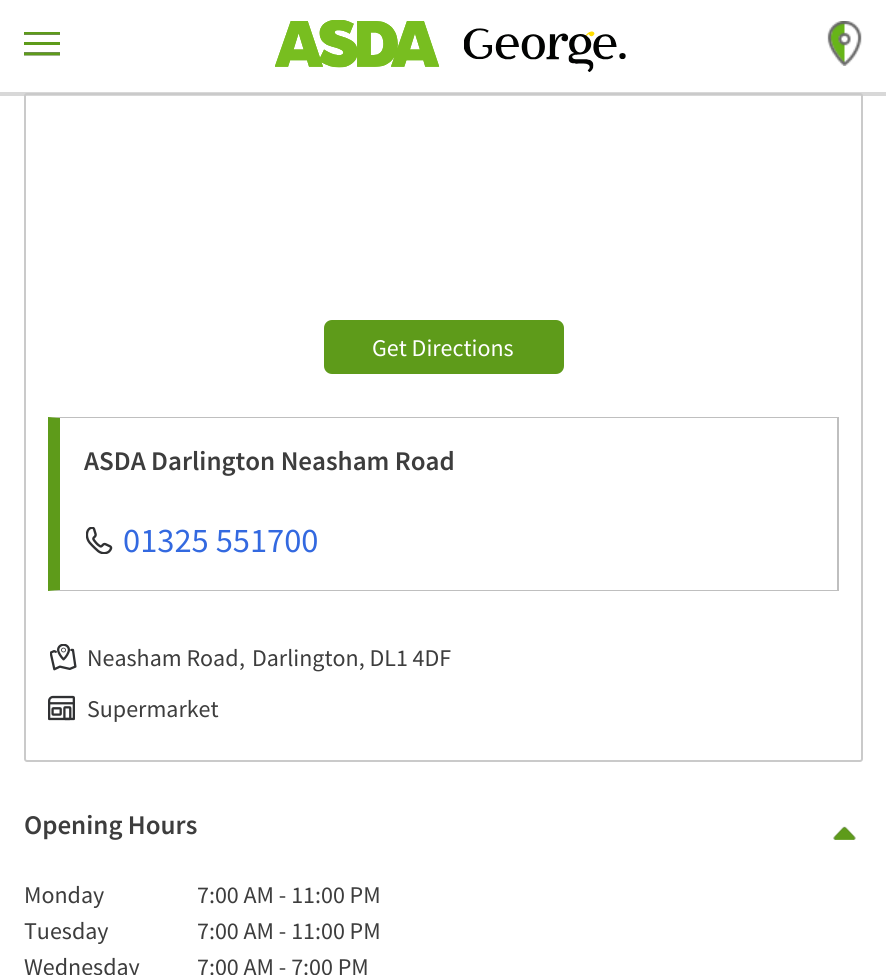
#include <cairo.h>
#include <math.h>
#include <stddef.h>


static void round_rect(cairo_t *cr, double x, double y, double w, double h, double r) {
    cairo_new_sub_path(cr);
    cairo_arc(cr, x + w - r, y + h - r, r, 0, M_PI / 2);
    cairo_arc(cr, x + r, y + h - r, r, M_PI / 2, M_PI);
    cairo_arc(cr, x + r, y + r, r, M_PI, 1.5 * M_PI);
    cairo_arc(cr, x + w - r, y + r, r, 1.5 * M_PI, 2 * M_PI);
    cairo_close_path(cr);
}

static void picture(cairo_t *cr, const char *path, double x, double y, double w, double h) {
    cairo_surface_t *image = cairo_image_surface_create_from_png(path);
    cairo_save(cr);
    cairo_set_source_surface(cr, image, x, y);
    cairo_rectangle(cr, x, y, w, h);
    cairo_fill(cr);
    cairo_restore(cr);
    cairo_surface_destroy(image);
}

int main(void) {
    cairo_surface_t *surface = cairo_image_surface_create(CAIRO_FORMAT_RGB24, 886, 975);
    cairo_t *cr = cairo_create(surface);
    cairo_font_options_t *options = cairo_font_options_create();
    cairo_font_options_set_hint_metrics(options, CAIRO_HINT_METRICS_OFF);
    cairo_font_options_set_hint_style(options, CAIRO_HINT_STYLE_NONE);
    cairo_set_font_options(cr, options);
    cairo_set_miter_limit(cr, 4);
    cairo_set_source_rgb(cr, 1, 1, 1);
    cairo_paint(cr);
    cairo_set_source_rgb(cr, 0.847, 0.847, 0.847);
    cairo_rectangle(cr, 0, 92, 886, 4);
    cairo_fill(cr);
    picture(cr, "img1.png", 24, 32, 36, 24);
    picture(cr, "img2.png", 275, 20, 165, 48);
    picture(cr, "img3.png", 464, 28, 162, 44);
    picture(cr, "img4.png", 827, 21, 35, 45);
    round_rect(cr, 25, 94, 837, 667, 2);
    cairo_set_source_rgb(cr, 0.792, 0.792, 0.792);
    cairo_stroke(cr);
    cairo_set_source_rgb(cr, 0.369, 0.608, 0.102);
    round_rect(cr, 324, 320, 240, 54, 8);
    cairo_fill(cr);
    cairo_select_font_face(cr, "Source Sans Pro", CAIRO_FONT_SLANT_NORMAL, CAIRO_FONT_WEIGHT_NORMAL);
    cairo_set_font_size(cr, 24);
    cairo_set_source_rgb(cr, 1, 1, 1);
    cairo_move_to(cr, 372, 356);
    cairo_show_text(cr, "Get Directions");
    cairo_set_source_rgb(cr, 0.749, 0.749, 0.749);
    cairo_new_path(cr);
    cairo_move_to(cr, 48, 417);
    cairo_line_to(cr, 838, 417);
    cairo_line_to(cr, 837, 418);
    cairo_line_to(cr, 60, 418);
    cairo_close_path(cr);
    cairo_fill(cr);
    cairo_rectangle(cr, 837, 417, 2, 174);
    cairo_fill(cr);
    cairo_new_path(cr);
    cairo_move_to(cr, 838, 591);
    cairo_line_to(cr, 48, 591);
    cairo_line_to(cr, 60, 590);
    cairo_line_to(cr, 837, 590);
    cairo_close_path(cr);
    cairo_fill(cr);
    cairo_set_source_rgb(cr, 0.369, 0.608, 0.102);
    cairo_new_path(cr);
    cairo_move_to(cr, 48, 591);
    cairo_line_to(cr, 48, 417);
    cairo_line_to(cr, 60, 418);
    cairo_line_to(cr, 60, 590);
    cairo_close_path(cr);
    cairo_fill(cr);
    cairo_select_font_face(cr, "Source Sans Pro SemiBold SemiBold", CAIRO_FONT_SLANT_NORMAL, CAIRO_FONT_WEIGHT_NORMAL);
    cairo_set_font_size(cr, 27);
    cairo_set_source_rgb(cr, 0.239, 0.239, 0.239);
    cairo_move_to(cr, 84, 470);
    cairo_show_text(cr, "ASDA Darlington Neasham Road");
    picture(cr, "img5.png", 86, 527, 27, 27);
    cairo_select_font_face(cr, "Source Sans Pro", CAIRO_FONT_SLANT_NORMAL, CAIRO_FONT_WEIGHT_NORMAL);
    cairo_set_font_size(cr, 34.5);
    cairo_set_source_rgb(cr, 0.2, 0.412, 0.878);
    cairo_move_to(cr, 123, 552);
    cairo_show_text(cr, "01325 551700");
    picture(cr, "img6.png", 50, 644, 27, 27);
    cairo_set_font_size(cr, 24);
    cairo_set_source_rgb(cr, 0.239, 0.239, 0.239);
    cairo_move_to(cr, 87, 666);
    cairo_show_text(cr, "Neasham Road");
    cairo_move_to(cr, 239, 666);
    cairo_show_text(cr, ",");
    cairo_move_to(cr, 252, 666);
    cairo_show_text(cr, "Darlington, DL1 4DF");
    picture(cr, "img7.png", 48, 695, 27, 26);
    cairo_move_to(cr, 87, 717);
    cairo_show_text(cr, "Supermarket");
    cairo_select_font_face(cr, "Source Sans Pro SemiBold SemiBold", CAIRO_FONT_SLANT_NORMAL, CAIRO_FONT_WEIGHT_NORMAL);
    cairo_set_font_size(cr, 27);
    cairo_move_to(cr, 24, 834);
    cairo_show_text(cr, "Opening Hours");
    picture(cr, "img8.png", 833, 826, 23, 14);
    cairo_select_font_face(cr, "Source Sans Pro", CAIRO_FONT_SLANT_NORMAL, CAIRO_FONT_WEIGHT_NORMAL);
    cairo_set_font_size(cr, 24);
    cairo_move_to(cr, 24, 903);
    cairo_show_text(cr, "Monday");
    cairo_move_to(cr, 197, 903);
    cairo_show_text(cr, "7:00 AM - 11:00 PM");
    cairo_move_to(cr, 24, 939);
    cairo_show_text(cr, "Tuesday");
    cairo_move_to(cr, 197, 939);
    cairo_show_text(cr, "7:00 AM - 11:00 PM");
    cairo_move_to(cr, 24, 975);
    cairo_show_text(cr, "Wednesday");
    cairo_move_to(cr, 197, 975);
    cairo_show_text(cr, "7:00 AM - 7:00 PM");
    cairo_surface_write_to_png(surface, "page.png");
    cairo_font_options_destroy(options);
    cairo_destroy(cr);
    cairo_surface_destroy(surface);
    return 0;
}
